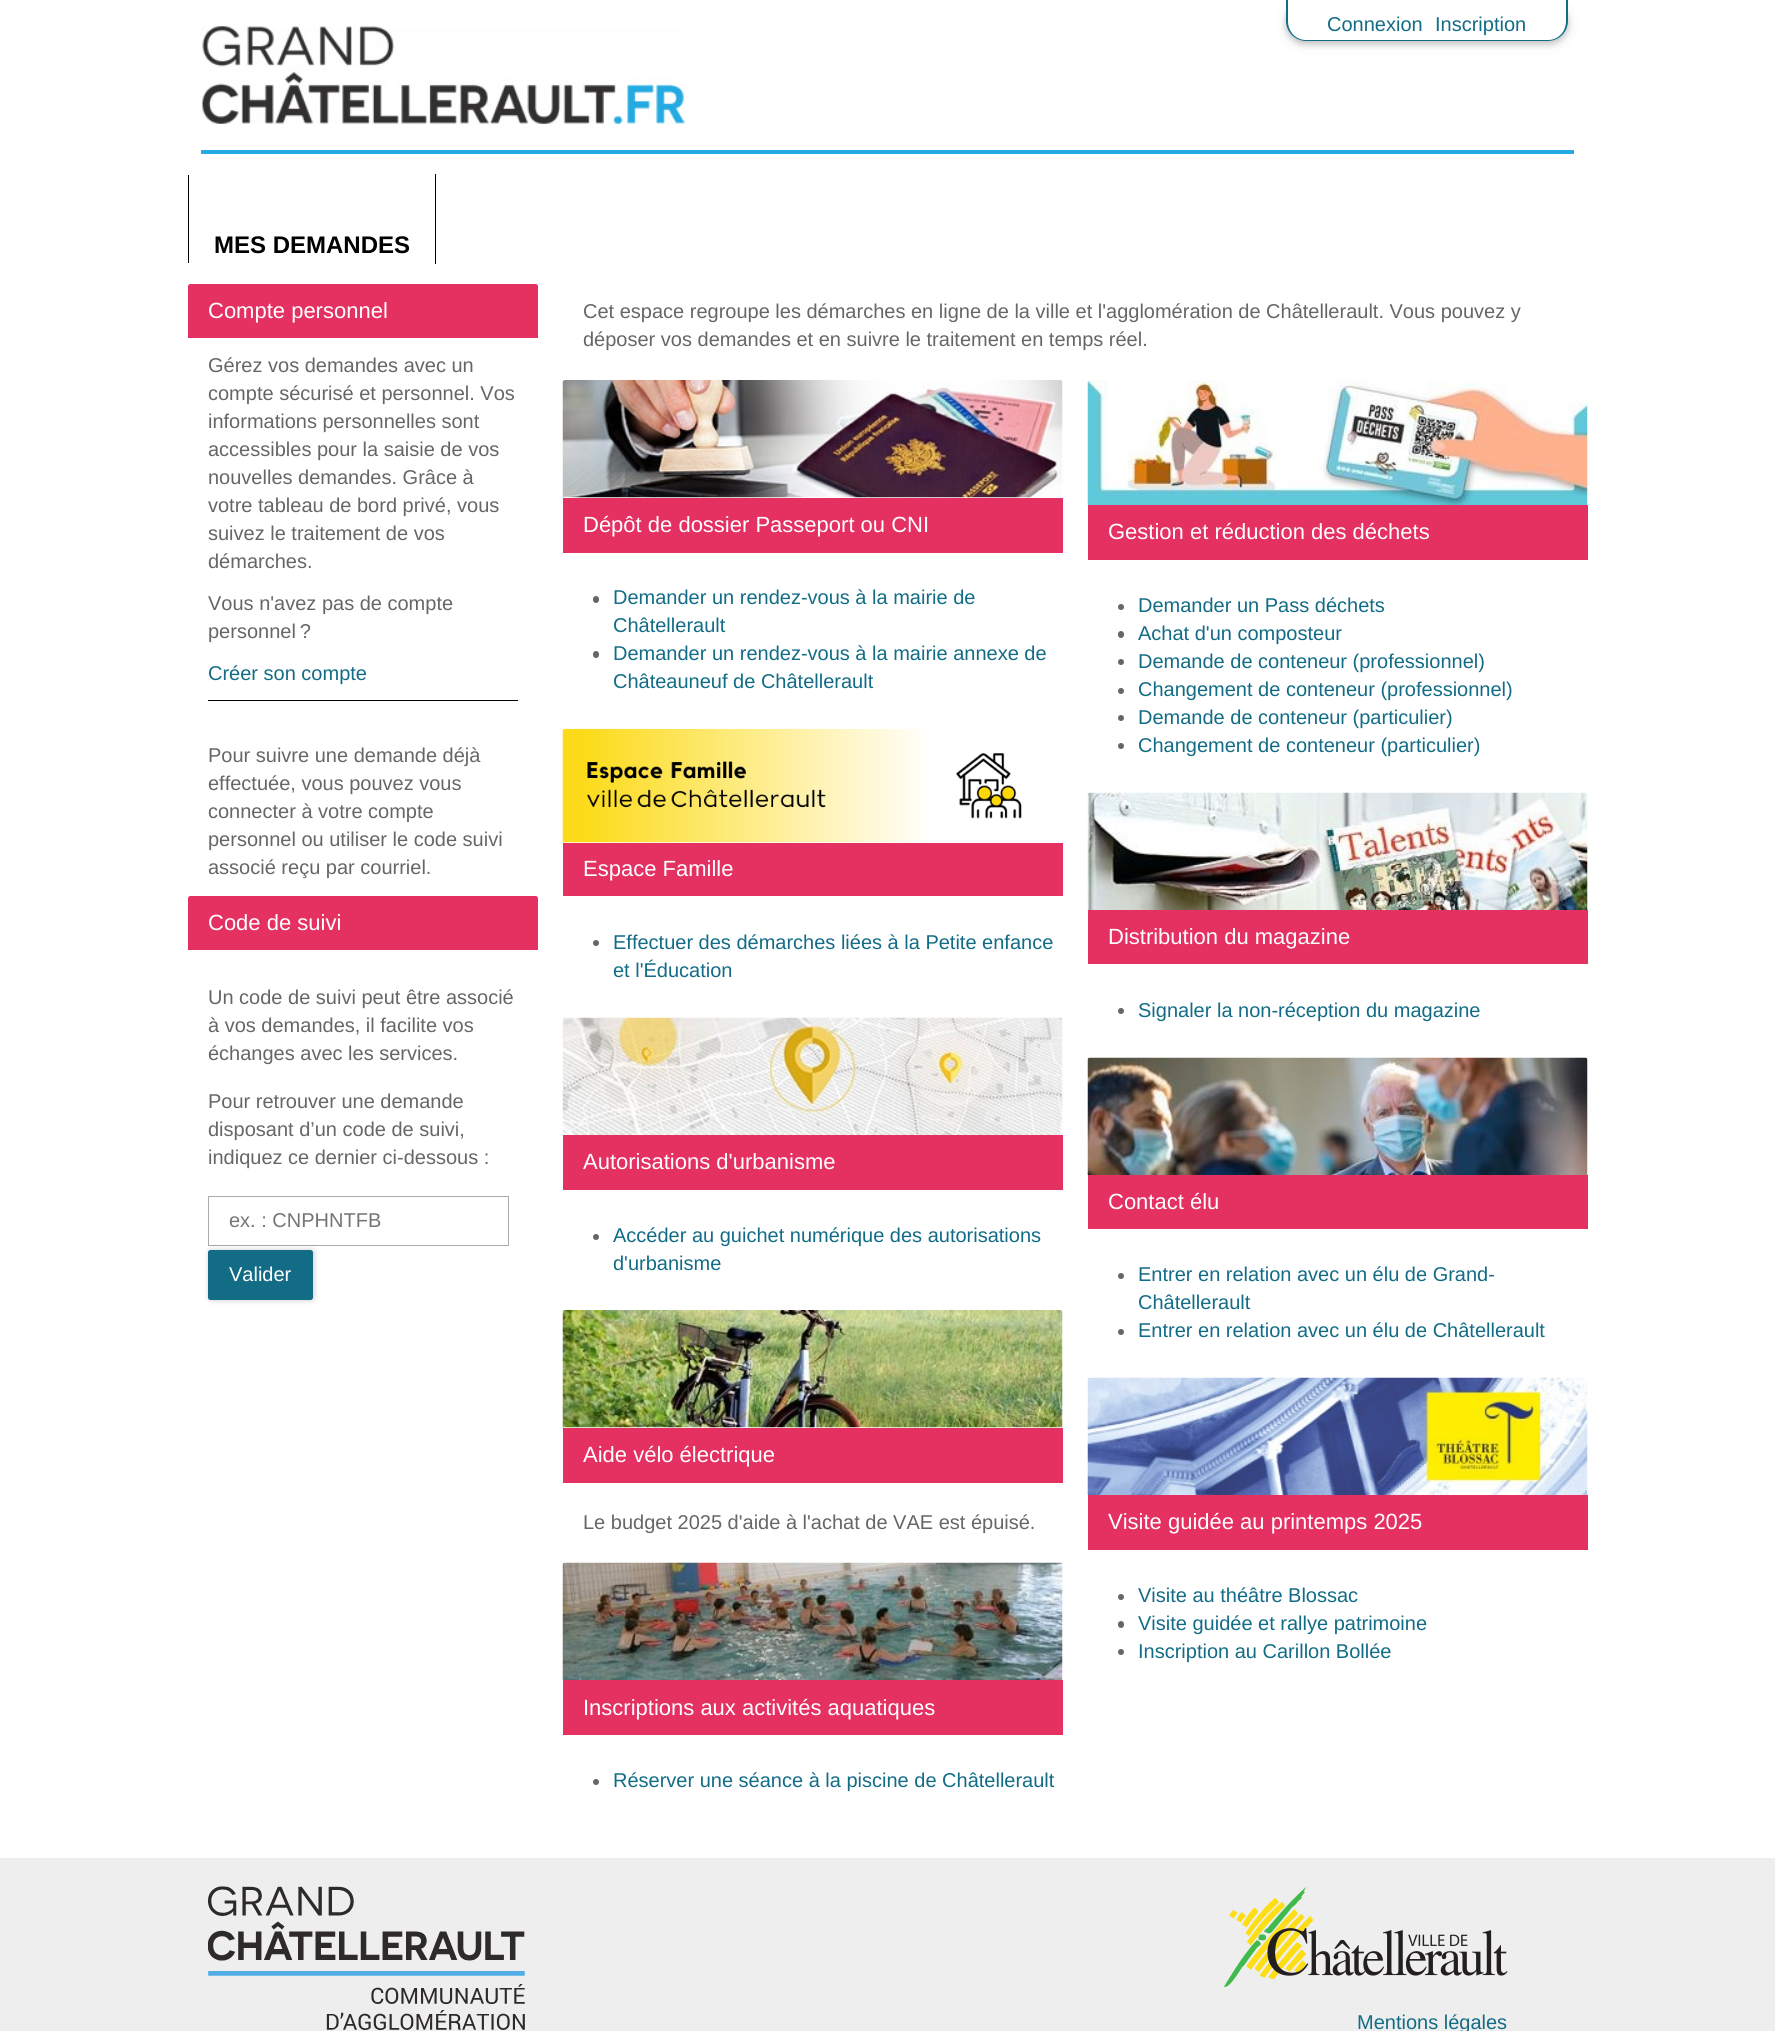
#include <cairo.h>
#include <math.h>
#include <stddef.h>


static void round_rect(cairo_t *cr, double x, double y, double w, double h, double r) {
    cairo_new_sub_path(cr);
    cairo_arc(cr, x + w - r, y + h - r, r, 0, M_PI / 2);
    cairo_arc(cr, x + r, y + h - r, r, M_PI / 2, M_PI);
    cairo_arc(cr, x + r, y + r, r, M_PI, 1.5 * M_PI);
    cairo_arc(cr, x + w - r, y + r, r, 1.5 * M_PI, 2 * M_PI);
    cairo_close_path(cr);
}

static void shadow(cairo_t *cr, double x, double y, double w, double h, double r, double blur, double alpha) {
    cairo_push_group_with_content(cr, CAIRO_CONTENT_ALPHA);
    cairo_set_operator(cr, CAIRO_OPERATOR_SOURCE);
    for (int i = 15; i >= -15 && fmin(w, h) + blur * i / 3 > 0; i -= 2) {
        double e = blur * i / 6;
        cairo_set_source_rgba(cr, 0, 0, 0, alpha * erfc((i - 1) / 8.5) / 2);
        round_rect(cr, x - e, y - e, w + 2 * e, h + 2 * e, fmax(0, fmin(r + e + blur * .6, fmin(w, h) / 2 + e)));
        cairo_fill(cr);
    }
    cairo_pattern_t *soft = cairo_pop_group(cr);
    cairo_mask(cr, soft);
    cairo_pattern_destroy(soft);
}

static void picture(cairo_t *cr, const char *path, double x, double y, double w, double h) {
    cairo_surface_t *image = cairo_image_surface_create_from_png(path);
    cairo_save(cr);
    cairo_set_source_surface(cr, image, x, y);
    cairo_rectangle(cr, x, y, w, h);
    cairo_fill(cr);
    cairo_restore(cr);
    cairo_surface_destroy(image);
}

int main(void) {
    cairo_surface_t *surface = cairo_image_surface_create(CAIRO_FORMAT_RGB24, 1775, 2031);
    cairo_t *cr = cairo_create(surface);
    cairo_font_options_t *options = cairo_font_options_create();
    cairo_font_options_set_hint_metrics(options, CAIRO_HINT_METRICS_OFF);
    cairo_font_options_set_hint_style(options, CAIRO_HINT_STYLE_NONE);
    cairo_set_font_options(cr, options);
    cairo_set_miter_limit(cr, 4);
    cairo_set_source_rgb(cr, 1, 1, 1);
    cairo_paint(cr);
    cairo_set_source_rgb(cr, 0.145, 0.667, 0.89);
    cairo_rectangle(cr, 201, 150, 1373, 4);
    cairo_fill(cr);
    picture(cr, "img1.png", 202, 26, 484, 99);
    cairo_save(cr);
    cairo_set_fill_rule(cr, CAIRO_FILL_RULE_EVEN_ODD);
    cairo_new_path(cr);
    cairo_move_to(cr, 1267, 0);
    cairo_line_to(cr, 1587, 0);
    cairo_line_to(cr, 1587, 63);
    cairo_line_to(cr, 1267, 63);
    cairo_close_path(cr);
    cairo_move_to(cr, 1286, 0);
    cairo_line_to(cr, 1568, 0);
    cairo_line_to(cr, 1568, 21);
    cairo_curve_to(cr, 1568, 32, 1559, 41, 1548, 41);
    cairo_line_to(cr, 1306, 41);
    cairo_curve_to(cr, 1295, 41, 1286, 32, 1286, 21);
    cairo_close_path(cr);
    cairo_clip(cr);
    cairo_set_source_rgb(cr, 0, 0, 0);
    shadow(cr, 1286, 3, 282, 41, 20, 6, 0.12);
    cairo_restore(cr);
    cairo_save(cr);
    cairo_set_fill_rule(cr, CAIRO_FILL_RULE_EVEN_ODD);
    cairo_new_path(cr);
    cairo_move_to(cr, 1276, 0);
    cairo_line_to(cr, 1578, 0);
    cairo_line_to(cr, 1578, 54);
    cairo_line_to(cr, 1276, 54);
    cairo_close_path(cr);
    cairo_move_to(cr, 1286, 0);
    cairo_line_to(cr, 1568, 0);
    cairo_line_to(cr, 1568, 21);
    cairo_curve_to(cr, 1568, 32, 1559, 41, 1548, 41);
    cairo_line_to(cr, 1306, 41);
    cairo_curve_to(cr, 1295, 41, 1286, 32, 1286, 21);
    cairo_close_path(cr);
    cairo_clip(cr);
    cairo_set_source_rgb(cr, 0, 0, 0);
    shadow(cr, 1286, 3, 282, 41, 20, 3, 0.16);
    cairo_restore(cr);
    cairo_set_source_rgb(cr, 0.071, 0.424, 0.525);
    cairo_set_fill_rule(cr, CAIRO_FILL_RULE_EVEN_ODD);
    cairo_new_path(cr);
    cairo_move_to(cr, 1286, 0);
    cairo_line_to(cr, 1568, 0);
    cairo_line_to(cr, 1568, 21);
    cairo_curve_to(cr, 1568, 32, 1559, 41, 1548, 41);
    cairo_line_to(cr, 1306, 41);
    cairo_curve_to(cr, 1295, 41, 1286, 32, 1286, 21);
    cairo_close_path(cr);
    cairo_move_to(cr, 1288, 0);
    cairo_line_to(cr, 1566, 0);
    cairo_line_to(cr, 1566, 21);
    cairo_curve_to(cr, 1566, 32, 1558, 40, 1548, 40);
    cairo_line_to(cr, 1306, 40);
    cairo_curve_to(cr, 1296, 40, 1288, 32, 1288, 21);
    cairo_close_path(cr);
    cairo_fill(cr);
    cairo_select_font_face(cr, "Liberation Sans", CAIRO_FONT_SLANT_NORMAL, CAIRO_FONT_WEIGHT_NORMAL);
    cairo_set_font_size(cr, 20);
    cairo_move_to(cr, 1327, 31);
    cairo_show_text(cr, "Connexion");
    cairo_move_to(cr, 1435, 31);
    cairo_show_text(cr, "Inscription");
    cairo_set_source_rgb(cr, 0, 0, 0);
    cairo_rectangle(cr, 435, 174, 1, 90);
    cairo_fill(cr);
    cairo_rectangle(cr, 188, 175, 1, 88);
    cairo_fill(cr);
    cairo_select_font_face(cr, "Liberation Sans", CAIRO_FONT_SLANT_NORMAL, CAIRO_FONT_WEIGHT_BOLD);
    cairo_set_font_size(cr, 24);
    cairo_move_to(cr, 214, 253);
    cairo_show_text(cr, "MES DEMANDES");
    cairo_set_source_rgb(cr, 0.898, 0.188, 0.384);
    cairo_new_path(cr);
    cairo_move_to(cr, 190.5, 284);
    cairo_line_to(cr, 535.5, 284);
    cairo_curve_to(cr, 537, 284, 538, 285, 538, 286.5);
    cairo_line_to(cr, 538, 338);
    cairo_line_to(cr, 188, 338);
    cairo_line_to(cr, 188, 286.5);
    cairo_curve_to(cr, 188, 285, 189, 284, 190.5, 284);
    cairo_close_path(cr);
    cairo_fill(cr);
    cairo_select_font_face(cr, "Liberation Sans", CAIRO_FONT_SLANT_NORMAL, CAIRO_FONT_WEIGHT_NORMAL);
    cairo_set_font_size(cr, 22);
    cairo_set_source_rgb(cr, 1, 1, 1);
    cairo_move_to(cr, 208, 318);
    cairo_show_text(cr, "Compte personnel");
    cairo_set_font_size(cr, 20);
    cairo_set_source_rgb(cr, 0.4, 0.4, 0.4);
    cairo_move_to(cr, 208, 372);
    cairo_show_text(cr, "Gérez vos demandes avec un");
    cairo_move_to(cr, 208, 400);
    cairo_show_text(cr, "compte sécurisé et personnel. Vos");
    cairo_move_to(cr, 208, 428);
    cairo_show_text(cr, "informations personnelles sont");
    cairo_move_to(cr, 208, 456);
    cairo_show_text(cr, "accessibles pour la saisie de vos");
    cairo_move_to(cr, 208, 484);
    cairo_show_text(cr, "nouvelles demandes. Grâce à");
    cairo_move_to(cr, 208, 512);
    cairo_show_text(cr, "votre tableau de bord privé, vous");
    cairo_move_to(cr, 208, 540);
    cairo_show_text(cr, "suivez le traitement de vos");
    cairo_move_to(cr, 208, 568);
    cairo_show_text(cr, "démarches.");
    cairo_move_to(cr, 208, 610);
    cairo_show_text(cr, "Vous n'avez pas de compte");
    cairo_move_to(cr, 208, 638);
    cairo_show_text(cr, "personnel ?");
    cairo_set_source_rgb(cr, 0, 0, 0);
    cairo_rectangle(cr, 208, 700, 310, 1);
    cairo_fill(cr);
    cairo_set_source_rgb(cr, 0.071, 0.424, 0.525);
    cairo_move_to(cr, 208, 680);
    cairo_show_text(cr, "Créer son compte");
    cairo_set_source_rgb(cr, 0.4, 0.4, 0.4);
    cairo_move_to(cr, 208, 762);
    cairo_show_text(cr, "Pour suivre une demande déjà");
    cairo_move_to(cr, 208, 790);
    cairo_show_text(cr, "effectuée, vous pouvez vous");
    cairo_move_to(cr, 208, 818);
    cairo_show_text(cr, "connecter à votre compte");
    cairo_move_to(cr, 208, 846);
    cairo_show_text(cr, "personnel ou utiliser le code suivi");
    cairo_move_to(cr, 208, 874);
    cairo_show_text(cr, "associé reçu par courriel.");
    cairo_set_source_rgb(cr, 0.898, 0.188, 0.384);
    cairo_new_path(cr);
    cairo_move_to(cr, 190.5, 896);
    cairo_line_to(cr, 535.5, 896);
    cairo_curve_to(cr, 537, 896, 538, 897, 538, 898.5);
    cairo_line_to(cr, 538, 950);
    cairo_line_to(cr, 188, 950);
    cairo_line_to(cr, 188, 898.5);
    cairo_curve_to(cr, 188, 897, 189, 896, 190.5, 896);
    cairo_close_path(cr);
    cairo_fill(cr);
    cairo_set_font_size(cr, 22);
    cairo_set_source_rgb(cr, 1, 1, 1);
    cairo_move_to(cr, 208, 930);
    cairo_show_text(cr, "Code de suivi");
    cairo_set_font_size(cr, 20);
    cairo_set_source_rgb(cr, 0.4, 0.4, 0.4);
    cairo_move_to(cr, 208, 1004);
    cairo_show_text(cr, "Un code de suivi peut être associé");
    cairo_move_to(cr, 208, 1032);
    cairo_show_text(cr, "à vos demandes, il facilite vos");
    cairo_move_to(cr, 208, 1060);
    cairo_show_text(cr, "échanges avec les services.");
    cairo_move_to(cr, 208, 1108);
    cairo_show_text(cr, "Pour retrouver une demande");
    cairo_move_to(cr, 208, 1136);
    cairo_show_text(cr, "disposant d’un code de suivi,");
    cairo_move_to(cr, 208, 1164);
    cairo_show_text(cr, "indiquez ce dernier ci-dessous :");
    cairo_rectangle(cr, 208.5, 1196.5, 300, 49);
    cairo_set_source_rgb(cr, 0.667, 0.667, 0.667);
    cairo_set_line_width(cr, 1);
    cairo_stroke(cr);
    cairo_set_source_rgb(cr, 0.459, 0.459, 0.459);
    cairo_move_to(cr, 229, 1227);
    cairo_show_text(cr, "ex. : CNPHNTFB");
    cairo_set_source_rgb(cr, 0, 0, 0);
    shadow(cr, 209, 1250, 105, 50, 2.5, 3, 0.21);
    cairo_set_source_rgb(cr, 0.071, 0.424, 0.525);
    round_rect(cr, 208, 1250, 105, 50, 2.5);
    cairo_fill(cr);
    cairo_set_source_rgb(cr, 1, 1, 1);
    cairo_move_to(cr, 229, 1281);
    cairo_show_text(cr, "Valider");
    cairo_set_source_rgb(cr, 0.4, 0.4, 0.4);
    cairo_move_to(cr, 583, 318);
    cairo_show_text(cr, "Cet espace regroupe les démarches en ligne de la ville et l'agglomération de Châtellerault. Vous pouvez y");
    cairo_move_to(cr, 583, 346);
    cairo_show_text(cr, "déposer vos demandes et en suivre le traitement en temps réel.");
    picture(cr, "img2.png", 562, 380, 501, 118);
    cairo_set_source_rgb(cr, 0.898, 0.188, 0.384);
    cairo_rectangle(cr, 563, 498, 500, 55);
    cairo_fill(cr);
    cairo_set_font_size(cr, 22);
    cairo_set_source_rgb(cr, 1, 1, 1);
    cairo_move_to(cr, 583, 532);
    cairo_show_text(cr, "Dépôt de dossier Passeport ou CNI");
    cairo_set_source_rgb(cr, 0.4, 0.4, 0.4);
    round_rect(cr, 593, 596, 6, 7, 3);
    cairo_fill(cr);
    cairo_set_font_size(cr, 20);
    cairo_set_source_rgb(cr, 0.071, 0.424, 0.525);
    cairo_move_to(cr, 613, 604);
    cairo_show_text(cr, "Demander un rendez-vous à la mairie de");
    cairo_move_to(cr, 613, 632);
    cairo_show_text(cr, "Châtellerault");
    cairo_set_source_rgb(cr, 0.4, 0.4, 0.4);
    round_rect(cr, 593, 651, 6, 7, 3);
    cairo_fill(cr);
    cairo_set_source_rgb(cr, 0.071, 0.424, 0.525);
    cairo_move_to(cr, 613, 660);
    cairo_show_text(cr, "Demander un rendez-vous à la mairie annexe de");
    cairo_move_to(cr, 613, 688);
    cairo_show_text(cr, "Châteauneuf de Châtellerault");
    picture(cr, "img3.png", 562, 728, 460, 115);
    cairo_set_source_rgb(cr, 0.898, 0.188, 0.384);
    cairo_rectangle(cr, 563, 843, 500, 53);
    cairo_fill(cr);
    cairo_set_font_size(cr, 22);
    cairo_set_source_rgb(cr, 1, 1, 1);
    cairo_move_to(cr, 583, 876);
    cairo_show_text(cr, "Espace Famille");
    cairo_set_source_rgb(cr, 0.4, 0.4, 0.4);
    cairo_new_path(cr);
    cairo_arc(cr, 596, 943, 3, 0, 2 * M_PI);
    cairo_fill(cr);
    cairo_set_font_size(cr, 20);
    cairo_set_source_rgb(cr, 0.071, 0.424, 0.525);
    cairo_move_to(cr, 613, 949);
    cairo_show_text(cr, "Effectuer des démarches liées à la Petite enfance");
    cairo_move_to(cr, 613, 977);
    cairo_show_text(cr, "et l'Éducation");
    picture(cr, "img4.png", 562, 1017, 501, 118);
    cairo_set_source_rgb(cr, 0.898, 0.188, 0.384);
    cairo_rectangle(cr, 563, 1135, 500, 55);
    cairo_fill(cr);
    cairo_set_font_size(cr, 22);
    cairo_set_source_rgb(cr, 1, 1, 1);
    cairo_move_to(cr, 583, 1169);
    cairo_show_text(cr, "Autorisations d'urbanisme");
    cairo_set_source_rgb(cr, 0.4, 0.4, 0.4);
    cairo_new_path(cr);
    cairo_arc(cr, 596, 1237, 3, 0, 2 * M_PI);
    cairo_fill(cr);
    cairo_set_font_size(cr, 20);
    cairo_set_source_rgb(cr, 0.071, 0.424, 0.525);
    cairo_move_to(cr, 613, 1242);
    cairo_show_text(cr, "Accéder au guichet numérique des autorisations");
    cairo_move_to(cr, 613, 1270);
    cairo_show_text(cr, "d'urbanisme");
    picture(cr, "img5.png", 562, 1310, 501, 118);
    cairo_set_source_rgb(cr, 0.898, 0.188, 0.384);
    cairo_rectangle(cr, 563, 1428, 500, 55);
    cairo_fill(cr);
    cairo_set_font_size(cr, 22);
    cairo_set_source_rgb(cr, 1, 1, 1);
    cairo_move_to(cr, 583, 1462);
    cairo_show_text(cr, "Aide vélo électrique");
    cairo_set_font_size(cr, 20);
    cairo_set_source_rgb(cr, 0.4, 0.4, 0.4);
    cairo_move_to(cr, 583, 1529);
    cairo_show_text(cr, "Le budget 2025 d'aide à l'achat de VAE est épuisé.");
    picture(cr, "img6.png", 562, 1562, 501, 118);
    cairo_set_source_rgb(cr, 0.898, 0.188, 0.384);
    cairo_rectangle(cr, 563, 1680, 500, 55);
    cairo_fill(cr);
    cairo_set_font_size(cr, 22);
    cairo_set_source_rgb(cr, 1, 1, 1);
    cairo_move_to(cr, 583, 1715);
    cairo_show_text(cr, "Inscriptions aux activités aquatiques");
    cairo_set_source_rgb(cr, 0.4, 0.4, 0.4);
    cairo_new_path(cr);
    cairo_arc(cr, 596, 1782, 3, 0, 2 * M_PI);
    cairo_fill(cr);
    cairo_set_font_size(cr, 20);
    cairo_set_source_rgb(cr, 0.071, 0.424, 0.525);
    cairo_move_to(cr, 613, 1787);
    cairo_show_text(cr, "Réserver une séance à la piscine de Châtellerault");
    picture(cr, "img7.png", 1087, 380, 501, 125);
    cairo_set_source_rgb(cr, 0.898, 0.188, 0.384);
    cairo_rectangle(cr, 1088, 505, 500, 55);
    cairo_fill(cr);
    cairo_set_font_size(cr, 22);
    cairo_set_source_rgb(cr, 1, 1, 1);
    cairo_move_to(cr, 1108, 539);
    cairo_show_text(cr, "Gestion et réduction des déchets");
    cairo_set_source_rgb(cr, 0.4, 0.4, 0.4);
    cairo_new_path(cr);
    cairo_arc(cr, 1121, 607, 3, 0, 2 * M_PI);
    cairo_fill(cr);
    cairo_set_font_size(cr, 20);
    cairo_set_source_rgb(cr, 0.071, 0.424, 0.525);
    cairo_move_to(cr, 1138, 612);
    cairo_show_text(cr, "Demander un Pass déchets");
    cairo_set_source_rgb(cr, 0.4, 0.4, 0.4);
    round_rect(cr, 1118, 631, 6, 7, 3);
    cairo_fill(cr);
    cairo_set_source_rgb(cr, 0.071, 0.424, 0.525);
    cairo_move_to(cr, 1138, 640);
    cairo_show_text(cr, "Achat d'un composteur");
    cairo_set_source_rgb(cr, 0.4, 0.4, 0.4);
    cairo_new_path(cr);
    cairo_arc(cr, 1121, 662, 3, 0, 2 * M_PI);
    cairo_fill(cr);
    cairo_set_source_rgb(cr, 0.071, 0.424, 0.525);
    cairo_move_to(cr, 1138, 668);
    cairo_show_text(cr, "Demande de conteneur (professionnel)");
    cairo_set_source_rgb(cr, 0.4, 0.4, 0.4);
    cairo_new_path(cr);
    cairo_arc(cr, 1121, 691, 3, 0, 2 * M_PI);
    cairo_fill(cr);
    cairo_set_source_rgb(cr, 0.071, 0.424, 0.525);
    cairo_move_to(cr, 1138, 696);
    cairo_show_text(cr, "Changement de conteneur (professionnel)");
    cairo_set_source_rgb(cr, 0.4, 0.4, 0.4);
    cairo_new_path(cr);
    cairo_arc(cr, 1121, 718, 3, 0, 2 * M_PI);
    cairo_fill(cr);
    cairo_set_source_rgb(cr, 0.071, 0.424, 0.525);
    cairo_move_to(cr, 1138, 724);
    cairo_show_text(cr, "Demande de conteneur (particulier)");
    cairo_set_source_rgb(cr, 0.4, 0.4, 0.4);
    cairo_new_path(cr);
    cairo_arc(cr, 1121, 746, 3, 0, 2 * M_PI);
    cairo_fill(cr);
    cairo_set_source_rgb(cr, 0.071, 0.424, 0.525);
    cairo_move_to(cr, 1138, 752);
    cairo_show_text(cr, "Changement de conteneur (particulier)");
    picture(cr, "img8.png", 1087, 792, 501, 118);
    cairo_set_source_rgb(cr, 0.898, 0.188, 0.384);
    cairo_rectangle(cr, 1088, 910, 500, 54);
    cairo_fill(cr);
    cairo_set_font_size(cr, 22);
    cairo_set_source_rgb(cr, 1, 1, 1);
    cairo_move_to(cr, 1108, 944);
    cairo_show_text(cr, "Distribution du magazine");
    cairo_set_source_rgb(cr, 0.4, 0.4, 0.4);
    cairo_new_path(cr);
    cairo_arc(cr, 1121, 1011, 3, 0, 2 * M_PI);
    cairo_fill(cr);
    cairo_set_font_size(cr, 20);
    cairo_set_source_rgb(cr, 0.071, 0.424, 0.525);
    cairo_move_to(cr, 1138, 1017);
    cairo_show_text(cr, "Signaler la non-réception du magazine");
    picture(cr, "img9.png", 1087, 1057, 501, 118);
    cairo_set_source_rgb(cr, 0.898, 0.188, 0.384);
    cairo_rectangle(cr, 1088, 1175, 500, 54);
    cairo_fill(cr);
    cairo_set_font_size(cr, 22);
    cairo_set_source_rgb(cr, 1, 1, 1);
    cairo_move_to(cr, 1108, 1209);
    cairo_show_text(cr, "Contact élu");
    cairo_set_source_rgb(cr, 0.4, 0.4, 0.4);
    cairo_new_path(cr);
    cairo_arc(cr, 1121, 1276, 3, 0, 2 * M_PI);
    cairo_fill(cr);
    cairo_set_font_size(cr, 20);
    cairo_set_source_rgb(cr, 0.071, 0.424, 0.525);
    cairo_move_to(cr, 1138, 1281);
    cairo_show_text(cr, "Entrer en relation avec un élu de Grand-");
    cairo_move_to(cr, 1138, 1309);
    cairo_show_text(cr, "Châtellerault");
    cairo_set_source_rgb(cr, 0.4, 0.4, 0.4);
    cairo_new_path(cr);
    cairo_arc(cr, 1121, 1332, 3, 0, 2 * M_PI);
    cairo_fill(cr);
    cairo_set_source_rgb(cr, 0.071, 0.424, 0.525);
    cairo_move_to(cr, 1138, 1337);
    cairo_show_text(cr, "Entrer en relation avec un élu de Châtellerault");
    picture(cr, "img10.png", 1087, 1377, 501, 118);
    cairo_set_source_rgb(cr, 0.898, 0.188, 0.384);
    cairo_rectangle(cr, 1088, 1495, 500, 55);
    cairo_fill(cr);
    cairo_set_font_size(cr, 22);
    cairo_set_source_rgb(cr, 1, 1, 1);
    cairo_move_to(cr, 1108, 1529);
    cairo_show_text(cr, "Visite guidée au printemps 2025");
    cairo_set_source_rgb(cr, 0.4, 0.4, 0.4);
    cairo_new_path(cr);
    cairo_arc(cr, 1121, 1597, 3, 0, 2 * M_PI);
    cairo_fill(cr);
    cairo_set_font_size(cr, 20);
    cairo_set_source_rgb(cr, 0.071, 0.424, 0.525);
    cairo_move_to(cr, 1138, 1602);
    cairo_show_text(cr, "Visite au théâtre Blossac");
    cairo_set_source_rgb(cr, 0.4, 0.4, 0.4);
    round_rect(cr, 1118, 1621, 6, 7, 3);
    cairo_fill(cr);
    cairo_set_source_rgb(cr, 0.071, 0.424, 0.525);
    cairo_move_to(cr, 1138, 1630);
    cairo_show_text(cr, "Visite guidée et rallye patrimoine");
    cairo_set_source_rgb(cr, 0.4, 0.4, 0.4);
    cairo_new_path(cr);
    cairo_arc(cr, 1121, 1652, 3, 0, 2 * M_PI);
    cairo_fill(cr);
    cairo_set_source_rgb(cr, 0.071, 0.424, 0.525);
    cairo_move_to(cr, 1138, 1658);
    cairo_show_text(cr, "Inscription au Carillon Bollée");
    cairo_set_source_rgb(cr, 0.933, 0.933, 0.933);
    cairo_rectangle(cr, 0, 1858, 1775, 173);
    cairo_fill(cr);
    picture(cr, "img11.png", 208, 1886, 317, 144);
    picture(cr, "img12.png", 1224, 1886, 284, 101);
    cairo_set_source_rgb(cr, 0.071, 0.424, 0.525);
    cairo_move_to(cr, 1357, 2029);
    cairo_show_text(cr, "Mentions légales");
    cairo_surface_write_to_png(surface, "page.png");
    cairo_font_options_destroy(options);
    cairo_destroy(cr);
    cairo_surface_destroy(surface);
    return 0;
}
